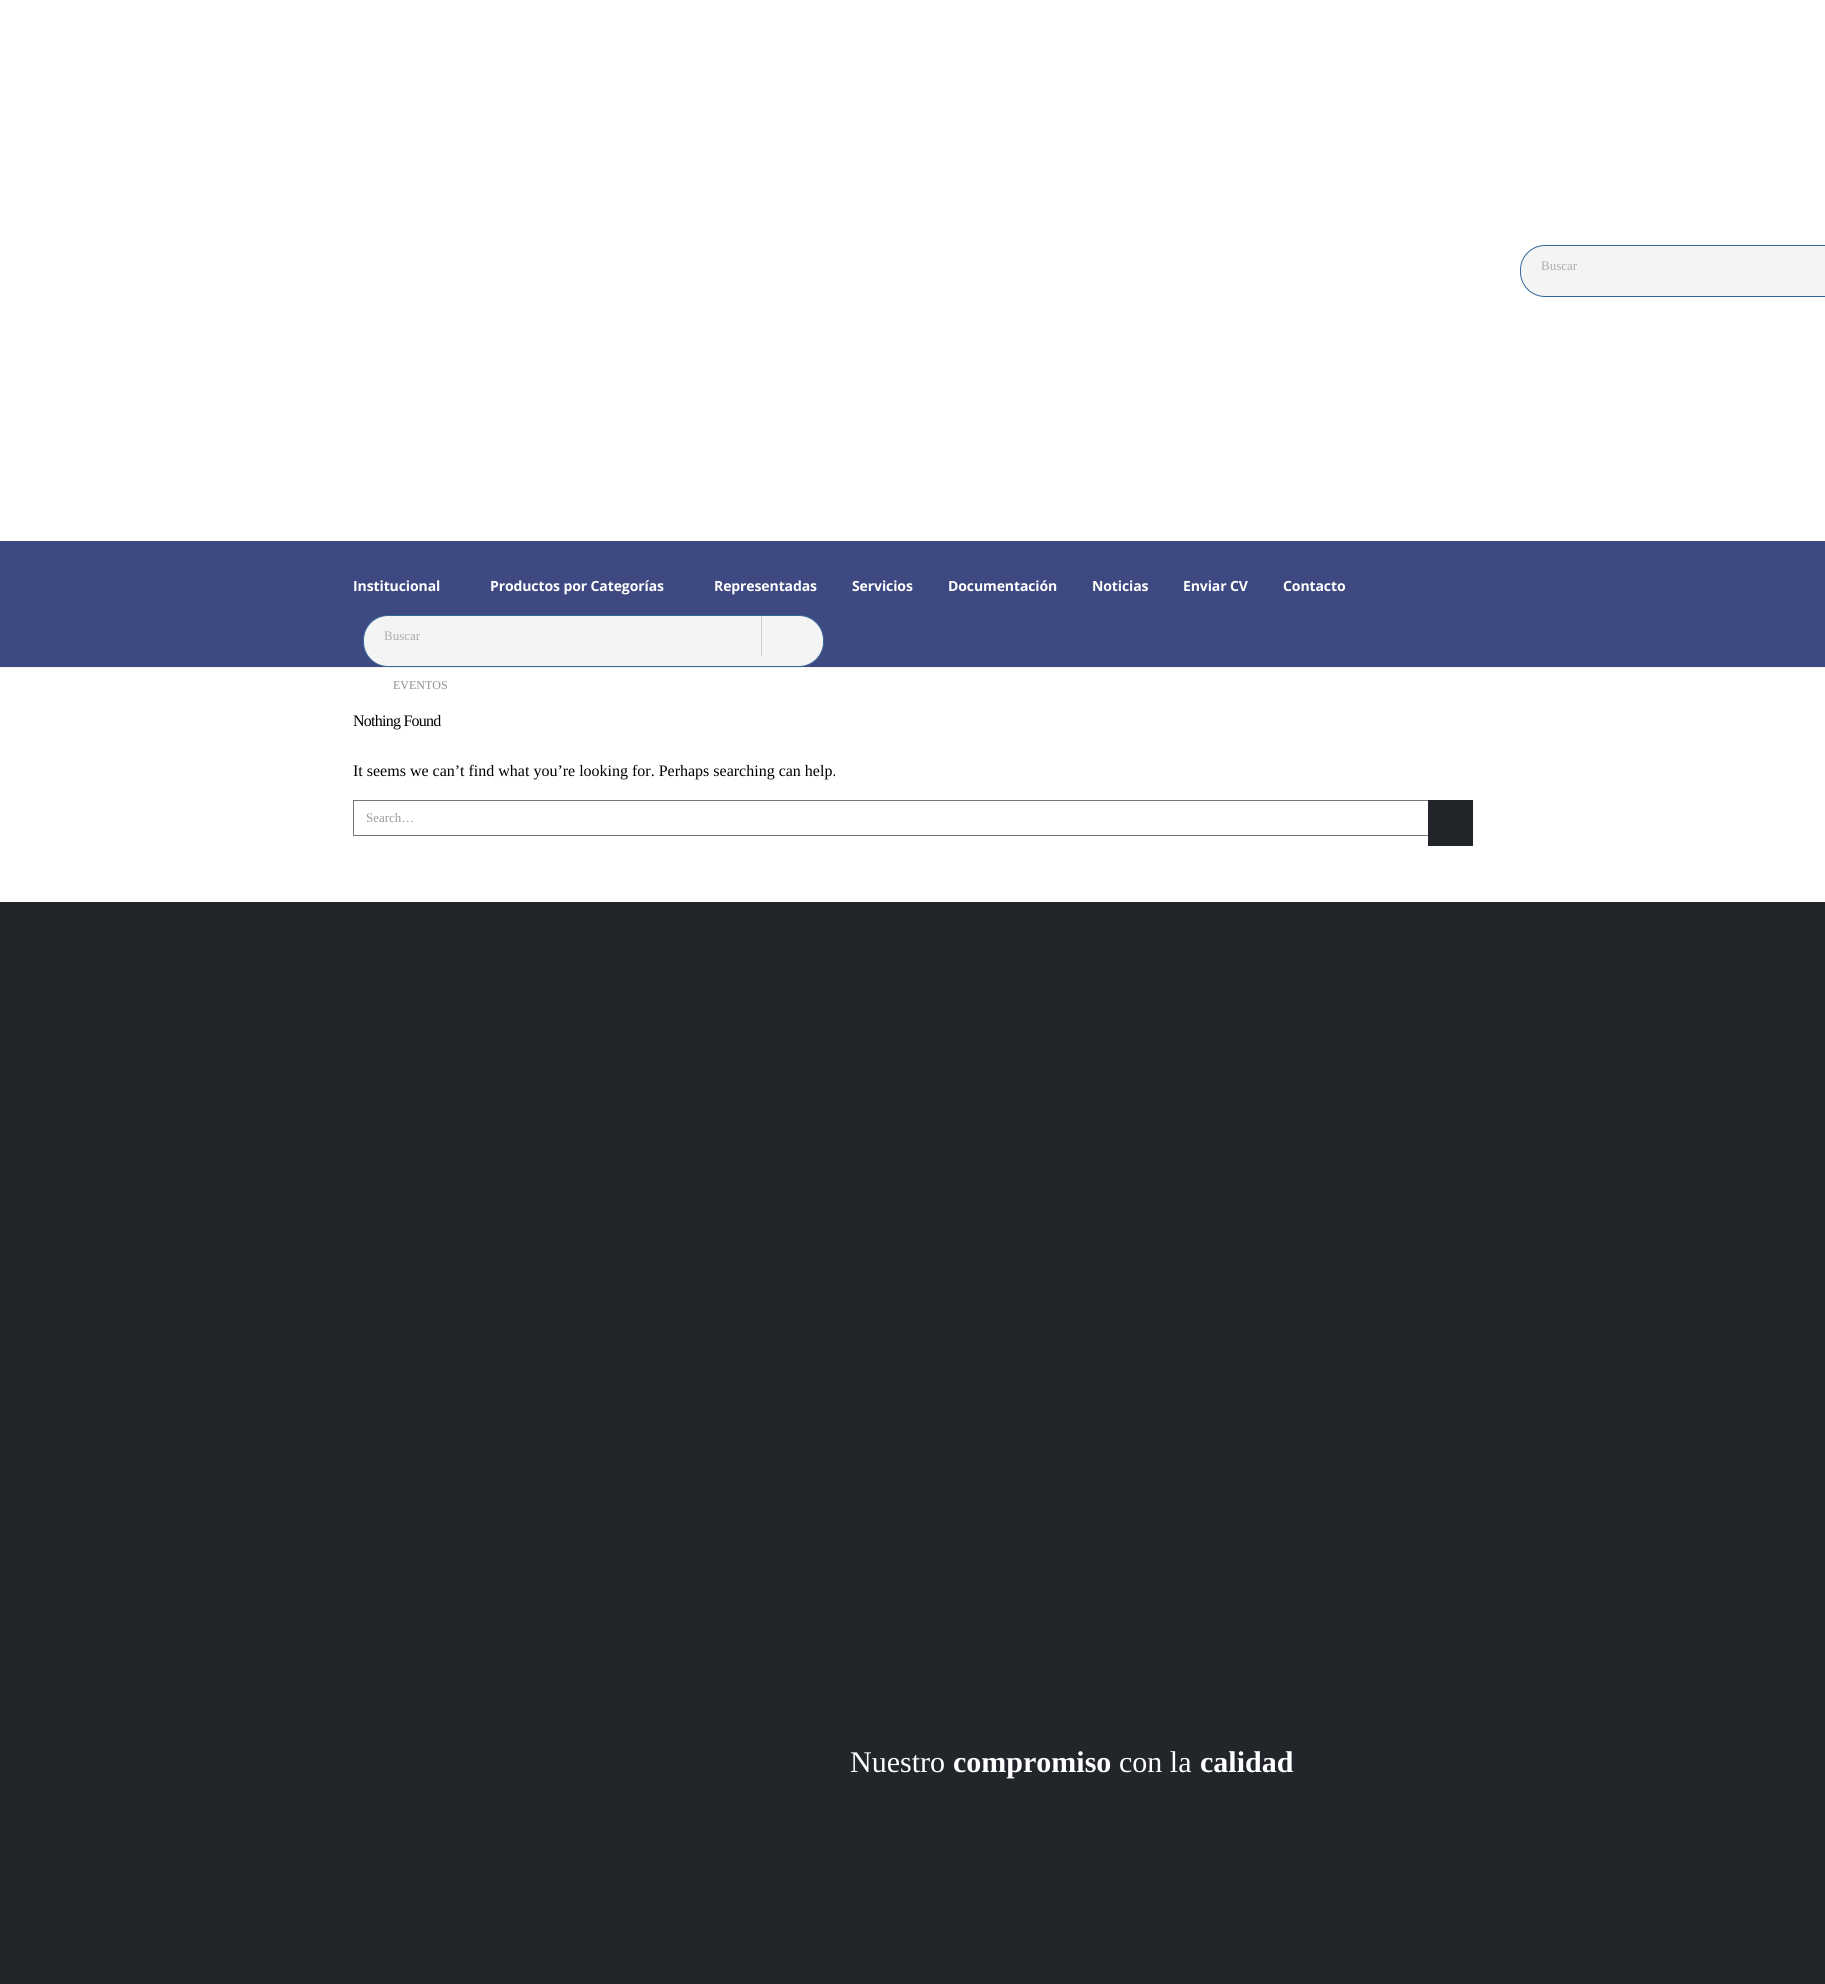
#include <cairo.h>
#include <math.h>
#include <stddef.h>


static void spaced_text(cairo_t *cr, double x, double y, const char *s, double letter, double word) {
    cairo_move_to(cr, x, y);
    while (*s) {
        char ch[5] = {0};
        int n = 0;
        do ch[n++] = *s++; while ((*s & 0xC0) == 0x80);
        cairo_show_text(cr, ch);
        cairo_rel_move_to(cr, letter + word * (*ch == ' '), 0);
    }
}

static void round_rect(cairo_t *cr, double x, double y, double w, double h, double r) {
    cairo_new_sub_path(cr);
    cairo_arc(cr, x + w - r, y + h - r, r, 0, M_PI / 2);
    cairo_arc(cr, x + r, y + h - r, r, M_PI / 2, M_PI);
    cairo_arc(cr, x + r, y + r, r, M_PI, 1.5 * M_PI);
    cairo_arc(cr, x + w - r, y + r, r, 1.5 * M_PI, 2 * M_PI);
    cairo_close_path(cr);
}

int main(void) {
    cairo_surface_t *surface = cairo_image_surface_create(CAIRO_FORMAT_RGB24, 1825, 1984);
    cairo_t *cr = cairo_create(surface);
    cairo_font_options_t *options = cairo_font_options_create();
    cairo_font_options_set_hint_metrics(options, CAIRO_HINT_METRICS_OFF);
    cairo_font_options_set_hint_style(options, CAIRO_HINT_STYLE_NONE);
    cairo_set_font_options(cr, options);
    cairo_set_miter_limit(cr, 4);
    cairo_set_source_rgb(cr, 1, 1, 1);
    cairo_paint(cr);
    cairo_set_source_rgb(cr, 0.957, 0.957, 0.957);
    cairo_rectangle(cr, 0, 667, 1825, 1);
    cairo_fill(cr);
    round_rect(cr, 1520.5, 245.5, 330, 51, 24.5);
    cairo_fill_preserve(cr);
    cairo_set_source_rgb(cr, 0.2, 0.4, 0.6);
    cairo_set_line_width(cr, 1);
    cairo_stroke(cr);
    cairo_select_font_face(cr, "Liberation Serif", CAIRO_FONT_SLANT_NORMAL, CAIRO_FONT_WEIGHT_NORMAL);
    cairo_set_font_size(cr, 13);
    cairo_set_source_rgb(cr, 0.675, 0.675, 0.675);
    cairo_move_to(cr, 1541, 270);
    cairo_show_text(cr, "Buscar");
    cairo_set_source_rgb(cr, 0.243, 0.286, 0.506);
    cairo_rectangle(cr, 0, 541, 1825, 126);
    cairo_fill(cr);
    cairo_select_font_face(cr, "Open Sans", CAIRO_FONT_SLANT_NORMAL, CAIRO_FONT_WEIGHT_BOLD);
    cairo_set_font_size(cr, 14);
    cairo_set_source_rgb(cr, 1, 1, 1);
    spaced_text(cr, 353, 591, "Institucional", -0.1, 0);
    spaced_text(cr, 490, 591, "Productos por Categorías", -0.1, 0);
    spaced_text(cr, 714, 591, "Representadas", -0.1, 0);
    spaced_text(cr, 852, 591, "Servicios", -0.1, 0);
    spaced_text(cr, 948, 591, "Documentación", -0.1, 0);
    spaced_text(cr, 1092, 591, "Noticias", -0.1, 0);
    spaced_text(cr, 1183, 591, "Enviar CV", -0.1, 0);
    spaced_text(cr, 1283, 591, "Contacto", -0.1, 0);
    cairo_set_source_rgb(cr, 0.957, 0.957, 0.957);
    round_rect(cr, 363.5, 615.5, 460, 51, 24.5);
    cairo_fill_preserve(cr);
    cairo_set_source_rgb(cr, 0.2, 0.4, 0.6);
    cairo_stroke(cr);
    cairo_set_source_rgb(cr, 0.8, 0.8, 0.8);
    cairo_rectangle(cr, 761, 616, 1, 40);
    cairo_fill(cr);
    cairo_select_font_face(cr, "Liberation Serif", CAIRO_FONT_SLANT_NORMAL, CAIRO_FONT_WEIGHT_NORMAL);
    cairo_set_font_size(cr, 13);
    cairo_set_source_rgb(cr, 0.675, 0.675, 0.675);
    cairo_move_to(cr, 384, 640);
    cairo_show_text(cr, "Buscar");
    cairo_set_font_size(cr, 12);
    cairo_set_source_rgb(cr, 0.557, 0.557, 0.557);
    cairo_move_to(cr, 393, 689);
    cairo_show_text(cr, "EVENTOS");
    cairo_set_font_size(cr, 16);
    cairo_set_source_rgb(cr, 0, 0, 0);
    spaced_text(cr, 353, 726, "Nothing Found", -0.75, 0);
    cairo_move_to(cr, 353, 776);
    cairo_show_text(cr, "It seems we can’t find what you’re looking for. Perhaps searching can help.");
    cairo_rectangle(cr, 353.5, 800.5, 1075, 35);
    cairo_set_source_rgb(cr, 0.467, 0.467, 0.467);
    cairo_stroke(cr);
    cairo_set_font_size(cr, 13);
    cairo_set_source_rgb(cr, 0.6, 0.6, 0.6);
    cairo_move_to(cr, 366, 822);
    cairo_show_text(cr, "Search…");
    cairo_set_source_rgb(cr, 0.129, 0.145, 0.161);
    cairo_rectangle(cr, 1428, 800, 45, 46);
    cairo_fill(cr);
    cairo_set_source_rgb(cr, 0.133, 0.145, 0.161);
    cairo_rectangle(cr, 0, 902, 1825, 1082);
    cairo_fill(cr);
    cairo_set_font_size(cr, 30);
    cairo_set_source_rgb(cr, 1, 1, 1);
    cairo_move_to(cr, 850, 1772);
    cairo_show_text(cr, "Nuestro");
    cairo_select_font_face(cr, "Liberation Serif", CAIRO_FONT_SLANT_NORMAL, CAIRO_FONT_WEIGHT_BOLD);
    cairo_move_to(cr, 953, 1772);
    cairo_show_text(cr, "compromiso");
    cairo_select_font_face(cr, "Liberation Serif", CAIRO_FONT_SLANT_NORMAL, CAIRO_FONT_WEIGHT_NORMAL);
    cairo_move_to(cr, 1119, 1772);
    cairo_show_text(cr, "con la");
    cairo_select_font_face(cr, "Liberation Serif", CAIRO_FONT_SLANT_NORMAL, CAIRO_FONT_WEIGHT_BOLD);
    cairo_move_to(cr, 1200, 1772);
    cairo_show_text(cr, "calidad");
    cairo_surface_write_to_png(surface, "page.png");
    cairo_font_options_destroy(options);
    cairo_destroy(cr);
    cairo_surface_destroy(surface);
    return 0;
}
